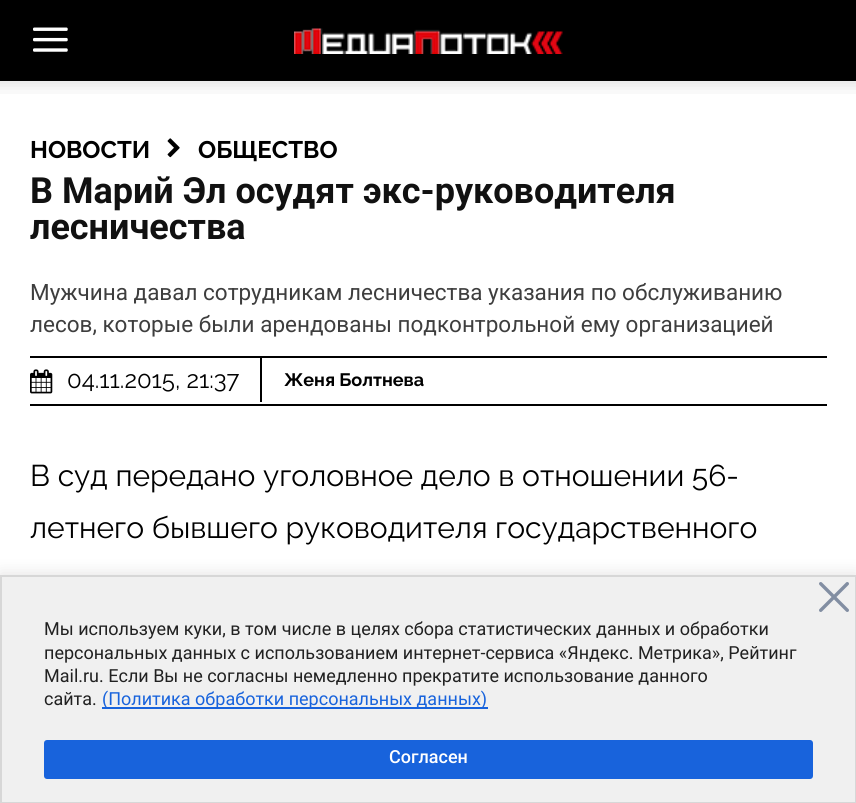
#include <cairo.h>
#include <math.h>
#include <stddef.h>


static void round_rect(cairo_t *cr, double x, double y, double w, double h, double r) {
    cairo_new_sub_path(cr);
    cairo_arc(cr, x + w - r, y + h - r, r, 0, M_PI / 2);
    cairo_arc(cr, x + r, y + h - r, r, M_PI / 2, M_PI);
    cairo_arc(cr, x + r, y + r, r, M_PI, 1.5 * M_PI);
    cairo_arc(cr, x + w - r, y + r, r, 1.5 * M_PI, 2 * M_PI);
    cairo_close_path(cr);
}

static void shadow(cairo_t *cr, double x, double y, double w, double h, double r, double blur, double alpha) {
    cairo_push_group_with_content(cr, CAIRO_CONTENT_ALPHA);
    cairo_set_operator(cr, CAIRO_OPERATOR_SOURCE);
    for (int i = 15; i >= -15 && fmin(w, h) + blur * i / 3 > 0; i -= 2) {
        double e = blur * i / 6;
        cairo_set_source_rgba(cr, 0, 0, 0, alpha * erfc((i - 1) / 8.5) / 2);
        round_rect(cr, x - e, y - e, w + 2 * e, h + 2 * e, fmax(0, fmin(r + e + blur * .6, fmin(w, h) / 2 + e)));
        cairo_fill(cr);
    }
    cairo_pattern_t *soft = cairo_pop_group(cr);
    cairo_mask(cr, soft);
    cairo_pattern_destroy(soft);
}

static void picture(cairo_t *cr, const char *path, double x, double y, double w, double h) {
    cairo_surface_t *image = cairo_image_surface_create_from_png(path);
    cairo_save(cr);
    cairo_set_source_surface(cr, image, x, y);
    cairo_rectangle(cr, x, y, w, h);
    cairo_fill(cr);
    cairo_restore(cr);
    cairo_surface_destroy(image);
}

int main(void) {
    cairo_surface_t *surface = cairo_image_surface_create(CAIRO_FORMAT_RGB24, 856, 803);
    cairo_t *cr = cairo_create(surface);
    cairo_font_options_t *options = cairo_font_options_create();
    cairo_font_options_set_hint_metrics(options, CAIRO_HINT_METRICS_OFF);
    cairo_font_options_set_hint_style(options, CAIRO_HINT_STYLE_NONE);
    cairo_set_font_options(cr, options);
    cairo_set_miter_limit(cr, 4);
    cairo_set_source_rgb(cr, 1, 1, 1);
    cairo_paint(cr);
    cairo_set_source_rgb(cr, 0, 0, 0);
    cairo_rectangle(cr, 0, 0, 856, 81);
    cairo_fill(cr);
    picture(cr, "img1.png", 33, 27, 35, 25);
    picture(cr, "img2.png", 294, 28, 269, 26);
    picture(cr, "img3.png", 0, 81, 856, 13);
    cairo_select_font_face(cr, "Raleway", CAIRO_FONT_SLANT_NORMAL, CAIRO_FONT_WEIGHT_BOLD);
    cairo_set_font_size(cr, 24);
    cairo_move_to(cr, 30, 158);
    cairo_show_text(cr, "НОВОСТИ");
    picture(cr, "img4.png", 167, 138, 13, 20);
    cairo_move_to(cr, 198, 158);
    cairo_show_text(cr, "ОБЩЕСТВО");
    cairo_select_font_face(cr, "Roboto", CAIRO_FONT_SLANT_NORMAL, CAIRO_FONT_WEIGHT_BOLD);
    cairo_set_font_size(cr, 36);
    cairo_set_source_rgb(cr, 0.067, 0.067, 0.067);
    cairo_move_to(cr, 30, 203);
    cairo_show_text(cr, "В Марий Эл осудят экс-руководителя");
    cairo_move_to(cr, 30, 239);
    cairo_show_text(cr, "лесничества");
    cairo_select_font_face(cr, "Roboto", CAIRO_FONT_SLANT_NORMAL, CAIRO_FONT_WEIGHT_NORMAL);
    cairo_set_font_size(cr, 22.5);
    cairo_set_source_rgb(cr, 0.243, 0.243, 0.243);
    cairo_move_to(cr, 30, 300);
    cairo_show_text(cr, "Мужчина давал сотрудникам лесничества указания по обслуживанию");
    cairo_move_to(cr, 30, 332);
    cairo_show_text(cr, "лесов, которые были арендованы подконтрольной ему организацией");
    cairo_set_source_rgb(cr, 0, 0, 0);
    cairo_rectangle(cr, 30, 356, 797, 2);
    cairo_fill(cr);
    cairo_rectangle(cr, 30, 404, 797, 2);
    cairo_fill(cr);
    picture(cr, "img5.png", 30, 369, 23, 25);
    cairo_select_font_face(cr, "Raleway", CAIRO_FONT_SLANT_NORMAL, CAIRO_FONT_WEIGHT_NORMAL);
    cairo_set_font_size(cr, 24);
    cairo_move_to(cr, 67, 388);
    cairo_show_text(cr, "04.11.2015, 21:37");
    cairo_rectangle(cr, 260, 357, 2, 45);
    cairo_fill(cr);
    cairo_select_font_face(cr, "Raleway", CAIRO_FONT_SLANT_NORMAL, CAIRO_FONT_WEIGHT_BOLD);
    cairo_set_font_size(cr, 18);
    cairo_move_to(cr, 284, 386);
    cairo_show_text(cr, "Женя Болтнева");
    cairo_select_font_face(cr, "Raleway", CAIRO_FONT_SLANT_NORMAL, CAIRO_FONT_WEIGHT_NORMAL);
    cairo_set_font_size(cr, 30);
    cairo_move_to(cr, 30, 486);
    cairo_show_text(cr, "В суд передано уголовное дело в отношении 56-");
    cairo_move_to(cr, 30, 538);
    cairo_show_text(cr, "летнего бывшего руководителя государственного");
    cairo_set_source_rgb(cr, 0.675, 0.671, 0.671);
    shadow(cr, 0, 573, 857, 230, 0, 7.5, 0.3);
    cairo_set_source_rgb(cr, 0.941, 0.941, 0.941);
    cairo_rectangle(cr, 1, 576, 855, 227);
    cairo_fill_preserve(cr);
    cairo_set_source_rgb(cr, 0.843, 0.843, 0.843);
    cairo_stroke(cr);
    picture(cr, "img6.png", 819, 582, 30, 30);
    cairo_select_font_face(cr, "Roboto", CAIRO_FONT_SLANT_NORMAL, CAIRO_FONT_WEIGHT_NORMAL);
    cairo_set_font_size(cr, 18);
    cairo_set_source_rgb(cr, 0.129, 0.129, 0.129);
    cairo_move_to(cr, 44, 635);
    cairo_show_text(cr, "Мы используем куки, в том числе в целях сбора статистических данных и обработки");
    cairo_move_to(cr, 44, 659);
    cairo_show_text(cr, "персональных данных с использованием интернет-сервиса «Яндекс. Метрика», Рейтинг");
    cairo_move_to(cr, 44, 682);
    cairo_show_text(cr, "Mail.ru. Если Вы не согласны немедленно прекратите использование данного");
    cairo_move_to(cr, 44, 705);
    cairo_show_text(cr, "сайта.");
    cairo_set_source_rgb(cr, 0.094, 0.388, 0.863);
    cairo_rectangle(cr, 102, 707, 386, 2);
    cairo_fill(cr);
    cairo_move_to(cr, 102, 705);
    cairo_show_text(cr, "(Политика обработки персональных данных)");
    round_rect(cr, 45.5, 741.5, 766, 36, 1.5);
    cairo_fill_preserve(cr);
    cairo_set_line_width(cr, 3);
    cairo_stroke(cr);
    cairo_select_font_face(cr, "Roboto Medium", CAIRO_FONT_SLANT_NORMAL, CAIRO_FONT_WEIGHT_NORMAL);
    cairo_set_source_rgb(cr, 1, 1, 1);
    cairo_move_to(cr, 389, 763);
    cairo_show_text(cr, "Согласен");
    cairo_surface_write_to_png(surface, "page.png");
    cairo_font_options_destroy(options);
    cairo_destroy(cr);
    cairo_surface_destroy(surface);
    return 0;
}
